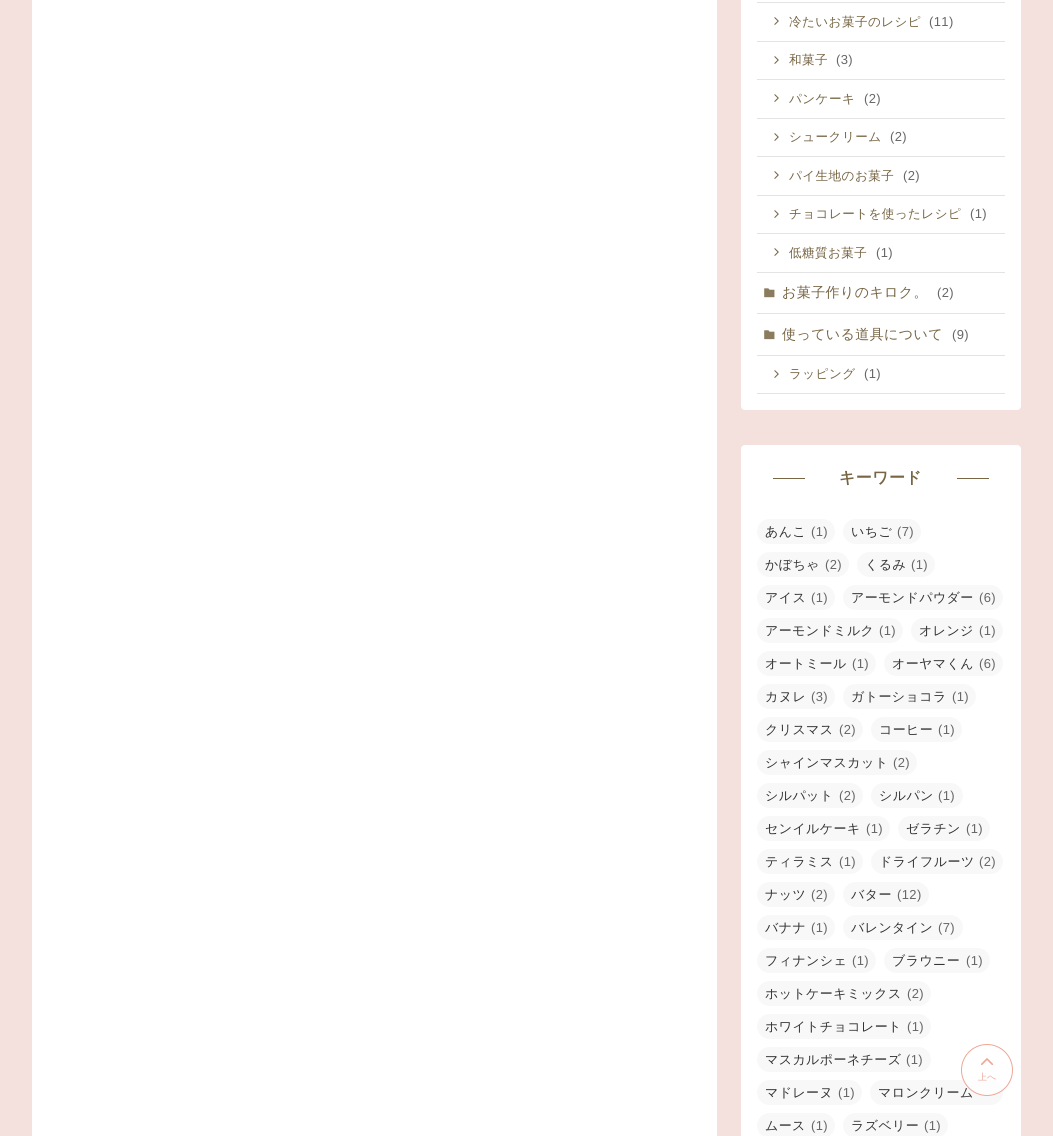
#include <cairo.h>
#include <math.h>
#include <stddef.h>


static void spaced_text(cairo_t *cr, double x, double y, const char *s, double letter, double word) {
    cairo_move_to(cr, x, y);
    while (*s) {
        char ch[5] = {0};
        int n = 0;
        do ch[n++] = *s++; while ((*s & 0xC0) == 0x80);
        cairo_show_text(cr, ch);
        cairo_rel_move_to(cr, letter + word * (*ch == ' '), 0);
    }
}

static void round_rect(cairo_t *cr, double x, double y, double w, double h, double r) {
    cairo_new_sub_path(cr);
    cairo_arc(cr, x + w - r, y + h - r, r, 0, M_PI / 2);
    cairo_arc(cr, x + r, y + h - r, r, M_PI / 2, M_PI);
    cairo_arc(cr, x + r, y + r, r, M_PI, 1.5 * M_PI);
    cairo_arc(cr, x + w - r, y + r, r, 1.5 * M_PI, 2 * M_PI);
    cairo_close_path(cr);
}

static void picture(cairo_t *cr, const char *path, double x, double y, double w, double h) {
    cairo_surface_t *image = cairo_image_surface_create_from_png(path);
    cairo_save(cr);
    cairo_set_source_surface(cr, image, x, y);
    cairo_rectangle(cr, x, y, w, h);
    cairo_fill(cr);
    cairo_restore(cr);
    cairo_surface_destroy(image);
}

int main(void) {
    cairo_surface_t *surface = cairo_image_surface_create(CAIRO_FORMAT_RGB24, 1053, 1136);
    cairo_t *cr = cairo_create(surface);
    cairo_font_options_t *options = cairo_font_options_create();
    cairo_font_options_set_hint_metrics(options, CAIRO_HINT_METRICS_OFF);
    cairo_font_options_set_hint_style(options, CAIRO_HINT_STYLE_NONE);
    cairo_set_font_options(cr, options);
    cairo_set_miter_limit(cr, 4);
    cairo_set_source_rgb(cr, 0.957, 0.882, 0.871);
    cairo_paint(cr);
    cairo_set_source_rgb(cr, 1, 1, 1);
    cairo_rectangle(cr, 32, 0, 685, 1136);
    cairo_fill(cr);
    round_rect(cr, 741, -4, 280, 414, 4);
    cairo_fill(cr);
    cairo_set_source_rgb(cr, 0.89, 0.89, 0.89);
    cairo_rectangle(cr, 757, 2, 248, 1);
    cairo_fill(cr);
    cairo_rectangle(cr, 757, 41, 248, 1);
    cairo_fill(cr);
    picture(cr, "img1.png", 774, 17, 5, 8);
    cairo_select_font_face(cr, "WenQuanYi Zen Hei Medium", CAIRO_FONT_SLANT_NORMAL, CAIRO_FONT_WEIGHT_NORMAL);
    cairo_set_font_size(cr, 12.6);
    cairo_set_source_rgb(cr, 0.467, 0.396, 0.267);
    spaced_text(cr, 789, 26, "冷たいお菓子のレシピ", 0.4, 0);
    cairo_select_font_face(cr, "Liberation Sans", CAIRO_FONT_SLANT_NORMAL, CAIRO_FONT_WEIGHT_NORMAL);
    cairo_set_font_size(cr, 13);
    cairo_set_source_rgb(cr, 0.4, 0.4, 0.4);
    spaced_text(cr, 929, 26, "(11)", 0.4, 0);
    cairo_set_source_rgb(cr, 0.89, 0.89, 0.89);
    cairo_rectangle(cr, 757, 79, 248, 1);
    cairo_fill(cr);
    picture(cr, "img1.png", 774, 56, 5, 8);
    cairo_select_font_face(cr, "WenQuanYi Zen Hei Medium", CAIRO_FONT_SLANT_NORMAL, CAIRO_FONT_WEIGHT_NORMAL);
    cairo_set_font_size(cr, 12.6);
    cairo_set_source_rgb(cr, 0.467, 0.396, 0.267);
    spaced_text(cr, 789, 64, "和菓子", 0.4, 0);
    cairo_select_font_face(cr, "Liberation Sans", CAIRO_FONT_SLANT_NORMAL, CAIRO_FONT_WEIGHT_NORMAL);
    cairo_set_font_size(cr, 13);
    cairo_set_source_rgb(cr, 0.4, 0.4, 0.4);
    spaced_text(cr, 836, 64, "(3)", 0.4, 0);
    cairo_set_source_rgb(cr, 0.89, 0.89, 0.89);
    cairo_rectangle(cr, 757, 118, 248, 1);
    cairo_fill(cr);
    picture(cr, "img1.png", 774, 94, 5, 8);
    cairo_select_font_face(cr, "WenQuanYi Zen Hei Medium", CAIRO_FONT_SLANT_NORMAL, CAIRO_FONT_WEIGHT_NORMAL);
    cairo_set_font_size(cr, 12.6);
    cairo_set_source_rgb(cr, 0.467, 0.396, 0.267);
    spaced_text(cr, 789, 103, "パンケーキ", 0.4, 0);
    cairo_select_font_face(cr, "Liberation Sans", CAIRO_FONT_SLANT_NORMAL, CAIRO_FONT_WEIGHT_NORMAL);
    cairo_set_font_size(cr, 13);
    cairo_set_source_rgb(cr, 0.4, 0.4, 0.4);
    spaced_text(cr, 864, 103, "(2)", 0.4, 0);
    cairo_set_source_rgb(cr, 0.89, 0.89, 0.89);
    cairo_rectangle(cr, 757, 156, 248, 1);
    cairo_fill(cr);
    picture(cr, "img1.png", 774, 133, 5, 8);
    cairo_select_font_face(cr, "WenQuanYi Zen Hei Medium", CAIRO_FONT_SLANT_NORMAL, CAIRO_FONT_WEIGHT_NORMAL);
    cairo_set_font_size(cr, 12.6);
    cairo_set_source_rgb(cr, 0.467, 0.396, 0.267);
    spaced_text(cr, 789, 141, "シュークリーム", 0.4, 0);
    cairo_select_font_face(cr, "Liberation Sans", CAIRO_FONT_SLANT_NORMAL, CAIRO_FONT_WEIGHT_NORMAL);
    cairo_set_font_size(cr, 13);
    cairo_set_source_rgb(cr, 0.4, 0.4, 0.4);
    spaced_text(cr, 890, 141, "(2)", 0.4, 0);
    cairo_set_source_rgb(cr, 0.89, 0.89, 0.89);
    cairo_rectangle(cr, 757, 195, 248, 1);
    cairo_fill(cr);
    picture(cr, "img1.png", 774, 171, 5, 8);
    cairo_select_font_face(cr, "WenQuanYi Zen Hei Medium", CAIRO_FONT_SLANT_NORMAL, CAIRO_FONT_WEIGHT_NORMAL);
    cairo_set_font_size(cr, 12.6);
    cairo_set_source_rgb(cr, 0.467, 0.396, 0.267);
    spaced_text(cr, 789, 180, "パイ生地のお菓子", 0.4, 0);
    cairo_select_font_face(cr, "Liberation Sans", CAIRO_FONT_SLANT_NORMAL, CAIRO_FONT_WEIGHT_NORMAL);
    cairo_set_font_size(cr, 13);
    cairo_set_source_rgb(cr, 0.4, 0.4, 0.4);
    spaced_text(cr, 903, 180, "(2)", 0.4, 0);
    cairo_set_source_rgb(cr, 0.89, 0.89, 0.89);
    cairo_rectangle(cr, 757, 233, 248, 1);
    cairo_fill(cr);
    picture(cr, "img1.png", 774, 210, 5, 8);
    cairo_select_font_face(cr, "WenQuanYi Zen Hei Medium", CAIRO_FONT_SLANT_NORMAL, CAIRO_FONT_WEIGHT_NORMAL);
    cairo_set_font_size(cr, 12.6);
    cairo_set_source_rgb(cr, 0.467, 0.396, 0.267);
    spaced_text(cr, 789, 218, "チョコレートを使ったレシピ", 0.4, 0);
    cairo_select_font_face(cr, "Liberation Sans", CAIRO_FONT_SLANT_NORMAL, CAIRO_FONT_WEIGHT_NORMAL);
    cairo_set_font_size(cr, 13);
    cairo_set_source_rgb(cr, 0.4, 0.4, 0.4);
    spaced_text(cr, 970, 218, "(1)", 0.4, 0);
    cairo_set_source_rgb(cr, 0.89, 0.89, 0.89);
    cairo_rectangle(cr, 757, 272, 248, 1);
    cairo_fill(cr);
    picture(cr, "img1.png", 774, 248, 5, 8);
    cairo_select_font_face(cr, "WenQuanYi Zen Hei Medium", CAIRO_FONT_SLANT_NORMAL, CAIRO_FONT_WEIGHT_NORMAL);
    cairo_set_font_size(cr, 12.6);
    cairo_set_source_rgb(cr, 0.467, 0.396, 0.267);
    spaced_text(cr, 789, 257, "低糖質お菓子", 0.4, 0);
    cairo_select_font_face(cr, "Liberation Sans", CAIRO_FONT_SLANT_NORMAL, CAIRO_FONT_WEIGHT_NORMAL);
    cairo_set_font_size(cr, 13);
    cairo_set_source_rgb(cr, 0.4, 0.4, 0.4);
    spaced_text(cr, 876, 257, "(1)", 0.4, 0);
    cairo_set_source_rgb(cr, 0.89, 0.89, 0.89);
    cairo_rectangle(cr, 757, 313, 248, 1);
    cairo_fill(cr);
    picture(cr, "img2.png", 764, 288, 11, 10);
    cairo_select_font_face(cr, "WenQuanYi Zen Hei Medium", CAIRO_FONT_SLANT_NORMAL, CAIRO_FONT_WEIGHT_NORMAL);
    cairo_set_font_size(cr, 14);
    cairo_set_source_rgb(cr, 0.467, 0.396, 0.267);
    spaced_text(cr, 782, 297, "お菓子作りのキロク。", 0.4, 0);
    cairo_select_font_face(cr, "Liberation Sans", CAIRO_FONT_SLANT_NORMAL, CAIRO_FONT_WEIGHT_NORMAL);
    cairo_set_font_size(cr, 13);
    cairo_set_source_rgb(cr, 0.4, 0.4, 0.4);
    spaced_text(cr, 937, 297, "(2)", 0.4, 0);
    cairo_set_source_rgb(cr, 0.89, 0.89, 0.89);
    cairo_rectangle(cr, 757, 355, 248, 1);
    cairo_fill(cr);
    picture(cr, "img3.png", 764, 330, 11, 10);
    cairo_select_font_face(cr, "WenQuanYi Zen Hei Medium", CAIRO_FONT_SLANT_NORMAL, CAIRO_FONT_WEIGHT_NORMAL);
    cairo_set_font_size(cr, 14);
    cairo_set_source_rgb(cr, 0.467, 0.396, 0.267);
    spaced_text(cr, 782, 339, "使っている道具について", 0.4, 0);
    cairo_select_font_face(cr, "Liberation Sans", CAIRO_FONT_SLANT_NORMAL, CAIRO_FONT_WEIGHT_NORMAL);
    cairo_set_font_size(cr, 13);
    cairo_set_source_rgb(cr, 0.4, 0.4, 0.4);
    spaced_text(cr, 952, 339, "(9)", 0.4, 0);
    cairo_set_source_rgb(cr, 0.89, 0.89, 0.89);
    cairo_rectangle(cr, 757, 393, 248, 1);
    cairo_fill(cr);
    picture(cr, "img1.png", 774, 370, 5, 8);
    cairo_select_font_face(cr, "WenQuanYi Zen Hei Medium", CAIRO_FONT_SLANT_NORMAL, CAIRO_FONT_WEIGHT_NORMAL);
    cairo_set_font_size(cr, 12.6);
    cairo_set_source_rgb(cr, 0.467, 0.396, 0.267);
    spaced_text(cr, 789, 378, "ラッピング", 0.4, 0);
    cairo_select_font_face(cr, "Liberation Sans", CAIRO_FONT_SLANT_NORMAL, CAIRO_FONT_WEIGHT_NORMAL);
    cairo_set_font_size(cr, 13);
    cairo_set_source_rgb(cr, 0.4, 0.4, 0.4);
    spaced_text(cr, 864, 378, "(1)", 0.4, 0);
    cairo_set_source_rgb(cr, 1, 1, 1);
    round_rect(cr, 741, 445, 280, 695, 4);
    cairo_fill(cr);
    cairo_set_source_rgb(cr, 0.467, 0.396, 0.267);
    cairo_rectangle(cr, 773, 478, 32, 1);
    cairo_fill(cr);
    cairo_select_font_face(cr, "WenQuanYi Zen Hei", CAIRO_FONT_SLANT_NORMAL, CAIRO_FONT_WEIGHT_BOLD);
    cairo_set_font_size(cr, 16);
    spaced_text(cr, 839, 483, "キーワード", 0.4, 0);
    cairo_rectangle(cr, 957, 478, 32, 1);
    cairo_fill(cr);
    cairo_set_source_rgb(cr, 0.969, 0.969, 0.969);
    round_rect(cr, 757, 519, 78, 25, 12.5);
    cairo_fill(cr);
    cairo_select_font_face(cr, "WenQuanYi Zen Hei Medium", CAIRO_FONT_SLANT_NORMAL, CAIRO_FONT_WEIGHT_NORMAL);
    cairo_set_font_size(cr, 13);
    cairo_set_source_rgb(cr, 0.2, 0.2, 0.2);
    spaced_text(cr, 765, 536, "あんこ", 0.4, 0);
    cairo_select_font_face(cr, "Liberation Sans", CAIRO_FONT_SLANT_NORMAL, CAIRO_FONT_WEIGHT_NORMAL);
    cairo_set_source_rgb(cr, 0.4, 0.4, 0.4);
    spaced_text(cr, 811, 536, "(1)", 0.4, 0);
    cairo_set_source_rgb(cr, 0.969, 0.969, 0.969);
    round_rect(cr, 843, 519, 78, 25, 12.5);
    cairo_fill(cr);
    cairo_select_font_face(cr, "WenQuanYi Zen Hei Medium", CAIRO_FONT_SLANT_NORMAL, CAIRO_FONT_WEIGHT_NORMAL);
    cairo_set_source_rgb(cr, 0.2, 0.2, 0.2);
    spaced_text(cr, 851, 536, "いちご", 0.4, 0);
    cairo_select_font_face(cr, "Liberation Sans", CAIRO_FONT_SLANT_NORMAL, CAIRO_FONT_WEIGHT_NORMAL);
    cairo_set_source_rgb(cr, 0.4, 0.4, 0.4);
    spaced_text(cr, 897, 536, "(7)", 0.4, 0);
    cairo_set_source_rgb(cr, 0.969, 0.969, 0.969);
    round_rect(cr, 757, 552, 92, 25, 12.5);
    cairo_fill(cr);
    cairo_select_font_face(cr, "WenQuanYi Zen Hei Medium", CAIRO_FONT_SLANT_NORMAL, CAIRO_FONT_WEIGHT_NORMAL);
    cairo_set_source_rgb(cr, 0.2, 0.2, 0.2);
    spaced_text(cr, 765, 569, "かぼちゃ", 0.4, 0);
    cairo_select_font_face(cr, "Liberation Sans", CAIRO_FONT_SLANT_NORMAL, CAIRO_FONT_WEIGHT_NORMAL);
    cairo_set_source_rgb(cr, 0.4, 0.4, 0.4);
    spaced_text(cr, 825, 569, "(2)", 0.4, 0);
    cairo_set_source_rgb(cr, 0.969, 0.969, 0.969);
    round_rect(cr, 857, 552, 78, 25, 12.5);
    cairo_fill(cr);
    cairo_select_font_face(cr, "WenQuanYi Zen Hei Medium", CAIRO_FONT_SLANT_NORMAL, CAIRO_FONT_WEIGHT_NORMAL);
    cairo_set_source_rgb(cr, 0.2, 0.2, 0.2);
    spaced_text(cr, 865, 569, "くるみ", 0.4, 0);
    cairo_select_font_face(cr, "Liberation Sans", CAIRO_FONT_SLANT_NORMAL, CAIRO_FONT_WEIGHT_NORMAL);
    cairo_set_source_rgb(cr, 0.4, 0.4, 0.4);
    spaced_text(cr, 911, 569, "(1)", 0.4, 0);
    cairo_set_source_rgb(cr, 0.969, 0.969, 0.969);
    round_rect(cr, 757, 585, 78, 25, 12.5);
    cairo_fill(cr);
    cairo_select_font_face(cr, "WenQuanYi Zen Hei Medium", CAIRO_FONT_SLANT_NORMAL, CAIRO_FONT_WEIGHT_NORMAL);
    cairo_set_source_rgb(cr, 0.2, 0.2, 0.2);
    spaced_text(cr, 765, 602, "アイス", 0.4, 0);
    cairo_select_font_face(cr, "Liberation Sans", CAIRO_FONT_SLANT_NORMAL, CAIRO_FONT_WEIGHT_NORMAL);
    cairo_set_source_rgb(cr, 0.4, 0.4, 0.4);
    spaced_text(cr, 811, 602, "(1)", 0.4, 0);
    cairo_set_source_rgb(cr, 0.969, 0.969, 0.969);
    round_rect(cr, 843, 585, 160, 25, 12.5);
    cairo_fill(cr);
    cairo_select_font_face(cr, "WenQuanYi Zen Hei Medium", CAIRO_FONT_SLANT_NORMAL, CAIRO_FONT_WEIGHT_NORMAL);
    cairo_set_source_rgb(cr, 0.2, 0.2, 0.2);
    spaced_text(cr, 851, 602, "アーモンドパウダー", 0.4, 0);
    cairo_select_font_face(cr, "Liberation Sans", CAIRO_FONT_SLANT_NORMAL, CAIRO_FONT_WEIGHT_NORMAL);
    cairo_set_source_rgb(cr, 0.4, 0.4, 0.4);
    spaced_text(cr, 979, 602, "(6)", 0.4, 0);
    cairo_set_source_rgb(cr, 0.969, 0.969, 0.969);
    round_rect(cr, 757, 618, 146, 25, 12.5);
    cairo_fill(cr);
    cairo_select_font_face(cr, "WenQuanYi Zen Hei Medium", CAIRO_FONT_SLANT_NORMAL, CAIRO_FONT_WEIGHT_NORMAL);
    cairo_set_source_rgb(cr, 0.2, 0.2, 0.2);
    spaced_text(cr, 765, 635, "アーモンドミルク", 0.4, 0);
    cairo_select_font_face(cr, "Liberation Sans", CAIRO_FONT_SLANT_NORMAL, CAIRO_FONT_WEIGHT_NORMAL);
    cairo_set_source_rgb(cr, 0.4, 0.4, 0.4);
    spaced_text(cr, 879, 635, "(1)", 0.4, 0);
    cairo_set_source_rgb(cr, 0.969, 0.969, 0.969);
    round_rect(cr, 911, 618, 92, 25, 12.5);
    cairo_fill(cr);
    cairo_select_font_face(cr, "WenQuanYi Zen Hei Medium", CAIRO_FONT_SLANT_NORMAL, CAIRO_FONT_WEIGHT_NORMAL);
    cairo_set_source_rgb(cr, 0.2, 0.2, 0.2);
    spaced_text(cr, 919, 635, "オレンジ", 0.4, 0);
    cairo_select_font_face(cr, "Liberation Sans", CAIRO_FONT_SLANT_NORMAL, CAIRO_FONT_WEIGHT_NORMAL);
    cairo_set_source_rgb(cr, 0.4, 0.4, 0.4);
    spaced_text(cr, 979, 635, "(1)", 0.4, 0);
    cairo_set_source_rgb(cr, 0.969, 0.969, 0.969);
    round_rect(cr, 757, 651, 119, 25, 12.5);
    cairo_fill(cr);
    cairo_select_font_face(cr, "WenQuanYi Zen Hei Medium", CAIRO_FONT_SLANT_NORMAL, CAIRO_FONT_WEIGHT_NORMAL);
    cairo_set_source_rgb(cr, 0.2, 0.2, 0.2);
    spaced_text(cr, 765, 668, "オートミール", 0.4, 0);
    cairo_select_font_face(cr, "Liberation Sans", CAIRO_FONT_SLANT_NORMAL, CAIRO_FONT_WEIGHT_NORMAL);
    cairo_set_source_rgb(cr, 0.4, 0.4, 0.4);
    spaced_text(cr, 852, 668, "(1)", 0.4, 0);
    cairo_set_source_rgb(cr, 0.969, 0.969, 0.969);
    round_rect(cr, 884, 651, 119, 25, 12.5);
    cairo_fill(cr);
    cairo_select_font_face(cr, "WenQuanYi Zen Hei Medium", CAIRO_FONT_SLANT_NORMAL, CAIRO_FONT_WEIGHT_NORMAL);
    cairo_set_source_rgb(cr, 0.2, 0.2, 0.2);
    spaced_text(cr, 892, 668, "オーヤマくん", 0.4, 0);
    cairo_select_font_face(cr, "Liberation Sans", CAIRO_FONT_SLANT_NORMAL, CAIRO_FONT_WEIGHT_NORMAL);
    cairo_set_source_rgb(cr, 0.4, 0.4, 0.4);
    spaced_text(cr, 979, 668, "(6)", 0.4, 0);
    cairo_set_source_rgb(cr, 0.969, 0.969, 0.969);
    round_rect(cr, 757, 684, 78, 25, 12.5);
    cairo_fill(cr);
    cairo_select_font_face(cr, "WenQuanYi Zen Hei Medium", CAIRO_FONT_SLANT_NORMAL, CAIRO_FONT_WEIGHT_NORMAL);
    cairo_set_source_rgb(cr, 0.2, 0.2, 0.2);
    spaced_text(cr, 765, 701, "カヌレ", 0.4, 0);
    cairo_select_font_face(cr, "Liberation Sans", CAIRO_FONT_SLANT_NORMAL, CAIRO_FONT_WEIGHT_NORMAL);
    cairo_set_source_rgb(cr, 0.4, 0.4, 0.4);
    spaced_text(cr, 811, 701, "(3)", 0.4, 0);
    cairo_set_source_rgb(cr, 0.969, 0.969, 0.969);
    round_rect(cr, 843, 684, 133, 25, 12.5);
    cairo_fill(cr);
    cairo_select_font_face(cr, "WenQuanYi Zen Hei Medium", CAIRO_FONT_SLANT_NORMAL, CAIRO_FONT_WEIGHT_NORMAL);
    cairo_set_source_rgb(cr, 0.2, 0.2, 0.2);
    spaced_text(cr, 851, 701, "ガトーショコラ", 0.4, 0);
    cairo_select_font_face(cr, "Liberation Sans", CAIRO_FONT_SLANT_NORMAL, CAIRO_FONT_WEIGHT_NORMAL);
    cairo_set_source_rgb(cr, 0.4, 0.4, 0.4);
    spaced_text(cr, 952, 701, "(1)", 0.4, 0);
    cairo_set_source_rgb(cr, 0.969, 0.969, 0.969);
    round_rect(cr, 757, 717, 106, 25, 12.5);
    cairo_fill(cr);
    cairo_select_font_face(cr, "WenQuanYi Zen Hei Medium", CAIRO_FONT_SLANT_NORMAL, CAIRO_FONT_WEIGHT_NORMAL);
    cairo_set_source_rgb(cr, 0.2, 0.2, 0.2);
    spaced_text(cr, 765, 734, "クリスマス", 0.4, 0);
    cairo_select_font_face(cr, "Liberation Sans", CAIRO_FONT_SLANT_NORMAL, CAIRO_FONT_WEIGHT_NORMAL);
    cairo_set_source_rgb(cr, 0.4, 0.4, 0.4);
    spaced_text(cr, 839, 734, "(2)", 0.4, 0);
    cairo_set_source_rgb(cr, 0.969, 0.969, 0.969);
    round_rect(cr, 871, 717, 91, 25, 12.5);
    cairo_fill(cr);
    cairo_select_font_face(cr, "WenQuanYi Zen Hei Medium", CAIRO_FONT_SLANT_NORMAL, CAIRO_FONT_WEIGHT_NORMAL);
    cairo_set_source_rgb(cr, 0.2, 0.2, 0.2);
    spaced_text(cr, 879, 734, "コーヒー", 0.4, 0);
    cairo_select_font_face(cr, "Liberation Sans", CAIRO_FONT_SLANT_NORMAL, CAIRO_FONT_WEIGHT_NORMAL);
    cairo_set_source_rgb(cr, 0.4, 0.4, 0.4);
    spaced_text(cr, 938, 734, "(1)", 0.4, 0);
    cairo_set_source_rgb(cr, 0.969, 0.969, 0.969);
    round_rect(cr, 757, 750, 160, 25, 12.5);
    cairo_fill(cr);
    cairo_select_font_face(cr, "WenQuanYi Zen Hei Medium", CAIRO_FONT_SLANT_NORMAL, CAIRO_FONT_WEIGHT_NORMAL);
    cairo_set_source_rgb(cr, 0.2, 0.2, 0.2);
    spaced_text(cr, 765, 767, "シャインマスカット", 0.4, 0);
    cairo_select_font_face(cr, "Liberation Sans", CAIRO_FONT_SLANT_NORMAL, CAIRO_FONT_WEIGHT_NORMAL);
    cairo_set_source_rgb(cr, 0.4, 0.4, 0.4);
    spaced_text(cr, 893, 767, "(2)", 0.4, 0);
    cairo_set_source_rgb(cr, 0.969, 0.969, 0.969);
    round_rect(cr, 757, 783, 106, 25, 12.5);
    cairo_fill(cr);
    cairo_select_font_face(cr, "WenQuanYi Zen Hei Medium", CAIRO_FONT_SLANT_NORMAL, CAIRO_FONT_WEIGHT_NORMAL);
    cairo_set_source_rgb(cr, 0.2, 0.2, 0.2);
    spaced_text(cr, 765, 800, "シルパット", 0.4, 0);
    cairo_select_font_face(cr, "Liberation Sans", CAIRO_FONT_SLANT_NORMAL, CAIRO_FONT_WEIGHT_NORMAL);
    cairo_set_source_rgb(cr, 0.4, 0.4, 0.4);
    spaced_text(cr, 839, 800, "(2)", 0.4, 0);
    cairo_set_source_rgb(cr, 0.969, 0.969, 0.969);
    round_rect(cr, 871, 783, 92, 25, 12.5);
    cairo_fill(cr);
    cairo_select_font_face(cr, "WenQuanYi Zen Hei Medium", CAIRO_FONT_SLANT_NORMAL, CAIRO_FONT_WEIGHT_NORMAL);
    cairo_set_source_rgb(cr, 0.2, 0.2, 0.2);
    spaced_text(cr, 879, 800, "シルパン", 0.4, 0);
    cairo_select_font_face(cr, "Liberation Sans", CAIRO_FONT_SLANT_NORMAL, CAIRO_FONT_WEIGHT_NORMAL);
    cairo_set_source_rgb(cr, 0.4, 0.4, 0.4);
    spaced_text(cr, 938, 800, "(1)", 0.4, 0);
    cairo_set_source_rgb(cr, 0.969, 0.969, 0.969);
    round_rect(cr, 757, 816, 133, 25, 12.5);
    cairo_fill(cr);
    cairo_select_font_face(cr, "WenQuanYi Zen Hei Medium", CAIRO_FONT_SLANT_NORMAL, CAIRO_FONT_WEIGHT_NORMAL);
    cairo_set_source_rgb(cr, 0.2, 0.2, 0.2);
    spaced_text(cr, 765, 833, "センイルケーキ", 0.4, 0);
    cairo_select_font_face(cr, "Liberation Sans", CAIRO_FONT_SLANT_NORMAL, CAIRO_FONT_WEIGHT_NORMAL);
    cairo_set_source_rgb(cr, 0.4, 0.4, 0.4);
    spaced_text(cr, 866, 833, "(1)", 0.4, 0);
    cairo_set_source_rgb(cr, 0.969, 0.969, 0.969);
    round_rect(cr, 898, 816, 92, 25, 12.5);
    cairo_fill(cr);
    cairo_select_font_face(cr, "WenQuanYi Zen Hei Medium", CAIRO_FONT_SLANT_NORMAL, CAIRO_FONT_WEIGHT_NORMAL);
    cairo_set_source_rgb(cr, 0.2, 0.2, 0.2);
    spaced_text(cr, 906, 833, "ゼラチン", 0.4, 0);
    cairo_select_font_face(cr, "Liberation Sans", CAIRO_FONT_SLANT_NORMAL, CAIRO_FONT_WEIGHT_NORMAL);
    cairo_set_source_rgb(cr, 0.4, 0.4, 0.4);
    spaced_text(cr, 966, 833, "(1)", 0.4, 0);
    cairo_set_source_rgb(cr, 0.969, 0.969, 0.969);
    round_rect(cr, 757, 849, 106, 25, 12.5);
    cairo_fill(cr);
    cairo_select_font_face(cr, "WenQuanYi Zen Hei Medium", CAIRO_FONT_SLANT_NORMAL, CAIRO_FONT_WEIGHT_NORMAL);
    cairo_set_source_rgb(cr, 0.2, 0.2, 0.2);
    spaced_text(cr, 765, 866, "ティラミス", 0.4, 0);
    cairo_select_font_face(cr, "Liberation Sans", CAIRO_FONT_SLANT_NORMAL, CAIRO_FONT_WEIGHT_NORMAL);
    cairo_set_source_rgb(cr, 0.4, 0.4, 0.4);
    spaced_text(cr, 839, 866, "(1)", 0.4, 0);
    cairo_set_source_rgb(cr, 0.969, 0.969, 0.969);
    round_rect(cr, 871, 849, 132, 25, 12.5);
    cairo_fill(cr);
    cairo_select_font_face(cr, "WenQuanYi Zen Hei Medium", CAIRO_FONT_SLANT_NORMAL, CAIRO_FONT_WEIGHT_NORMAL);
    cairo_set_source_rgb(cr, 0.2, 0.2, 0.2);
    spaced_text(cr, 879, 866, "ドライフルーツ", 0.4, 0);
    cairo_select_font_face(cr, "Liberation Sans", CAIRO_FONT_SLANT_NORMAL, CAIRO_FONT_WEIGHT_NORMAL);
    cairo_set_source_rgb(cr, 0.4, 0.4, 0.4);
    spaced_text(cr, 979, 866, "(2)", 0.4, 0);
    cairo_set_source_rgb(cr, 0.969, 0.969, 0.969);
    round_rect(cr, 757, 882, 78, 25, 12.5);
    cairo_fill(cr);
    cairo_select_font_face(cr, "WenQuanYi Zen Hei Medium", CAIRO_FONT_SLANT_NORMAL, CAIRO_FONT_WEIGHT_NORMAL);
    cairo_set_source_rgb(cr, 0.2, 0.2, 0.2);
    spaced_text(cr, 765, 899, "ナッツ", 0.4, 0);
    cairo_select_font_face(cr, "Liberation Sans", CAIRO_FONT_SLANT_NORMAL, CAIRO_FONT_WEIGHT_NORMAL);
    cairo_set_source_rgb(cr, 0.4, 0.4, 0.4);
    spaced_text(cr, 811, 899, "(2)", 0.4, 0);
    cairo_set_source_rgb(cr, 0.969, 0.969, 0.969);
    round_rect(cr, 843, 882, 86, 25, 12.5);
    cairo_fill(cr);
    cairo_select_font_face(cr, "WenQuanYi Zen Hei Medium", CAIRO_FONT_SLANT_NORMAL, CAIRO_FONT_WEIGHT_NORMAL);
    cairo_set_source_rgb(cr, 0.2, 0.2, 0.2);
    spaced_text(cr, 851, 899, "バター", 0.4, 0);
    cairo_select_font_face(cr, "Liberation Sans", CAIRO_FONT_SLANT_NORMAL, CAIRO_FONT_WEIGHT_NORMAL);
    cairo_set_source_rgb(cr, 0.4, 0.4, 0.4);
    spaced_text(cr, 897, 899, "(12)", 0.4, 0);
    cairo_set_source_rgb(cr, 0.969, 0.969, 0.969);
    round_rect(cr, 757, 915, 78, 25, 12.5);
    cairo_fill(cr);
    cairo_select_font_face(cr, "WenQuanYi Zen Hei Medium", CAIRO_FONT_SLANT_NORMAL, CAIRO_FONT_WEIGHT_NORMAL);
    cairo_set_source_rgb(cr, 0.2, 0.2, 0.2);
    spaced_text(cr, 765, 932, "バナナ", 0.4, 0);
    cairo_select_font_face(cr, "Liberation Sans", CAIRO_FONT_SLANT_NORMAL, CAIRO_FONT_WEIGHT_NORMAL);
    cairo_set_source_rgb(cr, 0.4, 0.4, 0.4);
    spaced_text(cr, 811, 932, "(1)", 0.4, 0);
    cairo_set_source_rgb(cr, 0.969, 0.969, 0.969);
    round_rect(cr, 843, 915, 120, 25, 12.5);
    cairo_fill(cr);
    cairo_select_font_face(cr, "WenQuanYi Zen Hei Medium", CAIRO_FONT_SLANT_NORMAL, CAIRO_FONT_WEIGHT_NORMAL);
    cairo_set_source_rgb(cr, 0.2, 0.2, 0.2);
    spaced_text(cr, 851, 932, "バレンタイン", 0.4, 0);
    cairo_select_font_face(cr, "Liberation Sans", CAIRO_FONT_SLANT_NORMAL, CAIRO_FONT_WEIGHT_NORMAL);
    cairo_set_source_rgb(cr, 0.4, 0.4, 0.4);
    spaced_text(cr, 938, 932, "(7)", 0.4, 0);
    cairo_set_source_rgb(cr, 0.969, 0.969, 0.969);
    round_rect(cr, 757, 948, 119, 25, 12.5);
    cairo_fill(cr);
    cairo_select_font_face(cr, "WenQuanYi Zen Hei Medium", CAIRO_FONT_SLANT_NORMAL, CAIRO_FONT_WEIGHT_NORMAL);
    cairo_set_source_rgb(cr, 0.2, 0.2, 0.2);
    spaced_text(cr, 765, 965, "フィナンシェ", 0.4, 0);
    cairo_select_font_face(cr, "Liberation Sans", CAIRO_FONT_SLANT_NORMAL, CAIRO_FONT_WEIGHT_NORMAL);
    cairo_set_source_rgb(cr, 0.4, 0.4, 0.4);
    spaced_text(cr, 852, 965, "(1)", 0.4, 0);
    cairo_set_source_rgb(cr, 0.969, 0.969, 0.969);
    round_rect(cr, 884, 948, 106, 25, 12.5);
    cairo_fill(cr);
    cairo_select_font_face(cr, "WenQuanYi Zen Hei Medium", CAIRO_FONT_SLANT_NORMAL, CAIRO_FONT_WEIGHT_NORMAL);
    cairo_set_source_rgb(cr, 0.2, 0.2, 0.2);
    spaced_text(cr, 892, 965, "ブラウニー", 0.4, 0);
    cairo_select_font_face(cr, "Liberation Sans", CAIRO_FONT_SLANT_NORMAL, CAIRO_FONT_WEIGHT_NORMAL);
    cairo_set_source_rgb(cr, 0.4, 0.4, 0.4);
    spaced_text(cr, 966, 965, "(1)", 0.4, 0);
    cairo_set_source_rgb(cr, 0.969, 0.969, 0.969);
    round_rect(cr, 757, 981, 174, 25, 12.5);
    cairo_fill(cr);
    cairo_select_font_face(cr, "WenQuanYi Zen Hei Medium", CAIRO_FONT_SLANT_NORMAL, CAIRO_FONT_WEIGHT_NORMAL);
    cairo_set_source_rgb(cr, 0.2, 0.2, 0.2);
    spaced_text(cr, 765, 998, "ホットケーキミックス", 0.4, 0);
    cairo_select_font_face(cr, "Liberation Sans", CAIRO_FONT_SLANT_NORMAL, CAIRO_FONT_WEIGHT_NORMAL);
    cairo_set_source_rgb(cr, 0.4, 0.4, 0.4);
    spaced_text(cr, 907, 998, "(2)", 0.4, 0);
    cairo_set_source_rgb(cr, 0.969, 0.969, 0.969);
    round_rect(cr, 757, 1014, 174, 25, 12.5);
    cairo_fill(cr);
    cairo_select_font_face(cr, "WenQuanYi Zen Hei Medium", CAIRO_FONT_SLANT_NORMAL, CAIRO_FONT_WEIGHT_NORMAL);
    cairo_set_source_rgb(cr, 0.2, 0.2, 0.2);
    spaced_text(cr, 765, 1031, "ホワイトチョコレート", 0.4, 0);
    cairo_select_font_face(cr, "Liberation Sans", CAIRO_FONT_SLANT_NORMAL, CAIRO_FONT_WEIGHT_NORMAL);
    cairo_set_source_rgb(cr, 0.4, 0.4, 0.4);
    spaced_text(cr, 907, 1031, "(1)", 0.4, 0);
    cairo_set_source_rgb(cr, 0.969, 0.969, 0.969);
    round_rect(cr, 757, 1047, 174, 25, 12.5);
    cairo_fill(cr);
    cairo_select_font_face(cr, "WenQuanYi Zen Hei Medium", CAIRO_FONT_SLANT_NORMAL, CAIRO_FONT_WEIGHT_NORMAL);
    cairo_set_source_rgb(cr, 0.2, 0.2, 0.2);
    spaced_text(cr, 765, 1064, "マスカルポーネチーズ", 0.4, 0);
    cairo_select_font_face(cr, "Liberation Sans", CAIRO_FONT_SLANT_NORMAL, CAIRO_FONT_WEIGHT_NORMAL);
    cairo_set_source_rgb(cr, 0.4, 0.4, 0.4);
    spaced_text(cr, 906, 1064, "(1)", 0.4, 0);
    cairo_set_source_rgb(cr, 0.969, 0.969, 0.969);
    round_rect(cr, 757, 1080, 105, 25, 12.5);
    cairo_fill(cr);
    cairo_select_font_face(cr, "WenQuanYi Zen Hei Medium", CAIRO_FONT_SLANT_NORMAL, CAIRO_FONT_WEIGHT_NORMAL);
    cairo_set_source_rgb(cr, 0.2, 0.2, 0.2);
    spaced_text(cr, 765, 1097, "マドレーヌ", 0.4, 0);
    cairo_select_font_face(cr, "Liberation Sans", CAIRO_FONT_SLANT_NORMAL, CAIRO_FONT_WEIGHT_NORMAL);
    cairo_set_source_rgb(cr, 0.4, 0.4, 0.4);
    spaced_text(cr, 838, 1097, "(1)", 0.4, 0);
    cairo_set_source_rgb(cr, 0.969, 0.969, 0.969);
    round_rect(cr, 870, 1080, 133, 25, 12.5);
    cairo_fill(cr);
    cairo_select_font_face(cr, "WenQuanYi Zen Hei Medium", CAIRO_FONT_SLANT_NORMAL, CAIRO_FONT_WEIGHT_NORMAL);
    cairo_set_source_rgb(cr, 0.2, 0.2, 0.2);
    spaced_text(cr, 878, 1097, "マロンクリーム", 0.4, 0);
    cairo_set_source_rgb(cr, 0.969, 0.969, 0.969);
    round_rect(cr, 757, 1113, 78, 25, 12.5);
    cairo_fill(cr);
    cairo_set_source_rgb(cr, 0.2, 0.2, 0.2);
    spaced_text(cr, 765, 1130, "ムース", 0.4, 0);
    cairo_select_font_face(cr, "Liberation Sans", CAIRO_FONT_SLANT_NORMAL, CAIRO_FONT_WEIGHT_NORMAL);
    cairo_set_source_rgb(cr, 0.4, 0.4, 0.4);
    spaced_text(cr, 811, 1130, "(1)", 0.4, 0);
    cairo_set_source_rgb(cr, 0.969, 0.969, 0.969);
    round_rect(cr, 843, 1113, 105, 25, 12.5);
    cairo_fill(cr);
    cairo_select_font_face(cr, "WenQuanYi Zen Hei Medium", CAIRO_FONT_SLANT_NORMAL, CAIRO_FONT_WEIGHT_NORMAL);
    cairo_set_source_rgb(cr, 0.2, 0.2, 0.2);
    spaced_text(cr, 851, 1130, "ラズベリー", 0.4, 0);
    cairo_select_font_face(cr, "Liberation Sans", CAIRO_FONT_SLANT_NORMAL, CAIRO_FONT_WEIGHT_NORMAL);
    cairo_set_source_rgb(cr, 0.4, 0.4, 0.4);
    spaced_text(cr, 924, 1130, "(1)", 0.4, 0);
    cairo_set_source_rgba(cr, 1, 1, 1, 0.75);
    cairo_new_path(cr);
    cairo_arc(cr, 987, 1070, 26, 0, 2 * M_PI);
    cairo_fill(cr);
    cairo_arc(cr, 987, 1070, 25.5, 0, 2 * M_PI);
    cairo_set_source_rgba(cr, 0.91, 0.541, 0.451, 0.75);
    cairo_set_line_width(cr, 1);
    cairo_stroke(cr);
    picture(cr, "img4.png", 980, 1058, 14, 7);
    cairo_select_font_face(cr, "WenQuanYi Zen Hei Medium", CAIRO_FONT_SLANT_NORMAL, CAIRO_FONT_WEIGHT_NORMAL);
    cairo_set_font_size(cr, 9);
    cairo_set_source_rgb(cr, 0.933, 0.655, 0.588);
    cairo_move_to(cr, 978, 1080);
    cairo_show_text(cr, "上へ");
    cairo_surface_write_to_png(surface, "page.png");
    cairo_font_options_destroy(options);
    cairo_destroy(cr);
    cairo_surface_destroy(surface);
    return 0;
}
